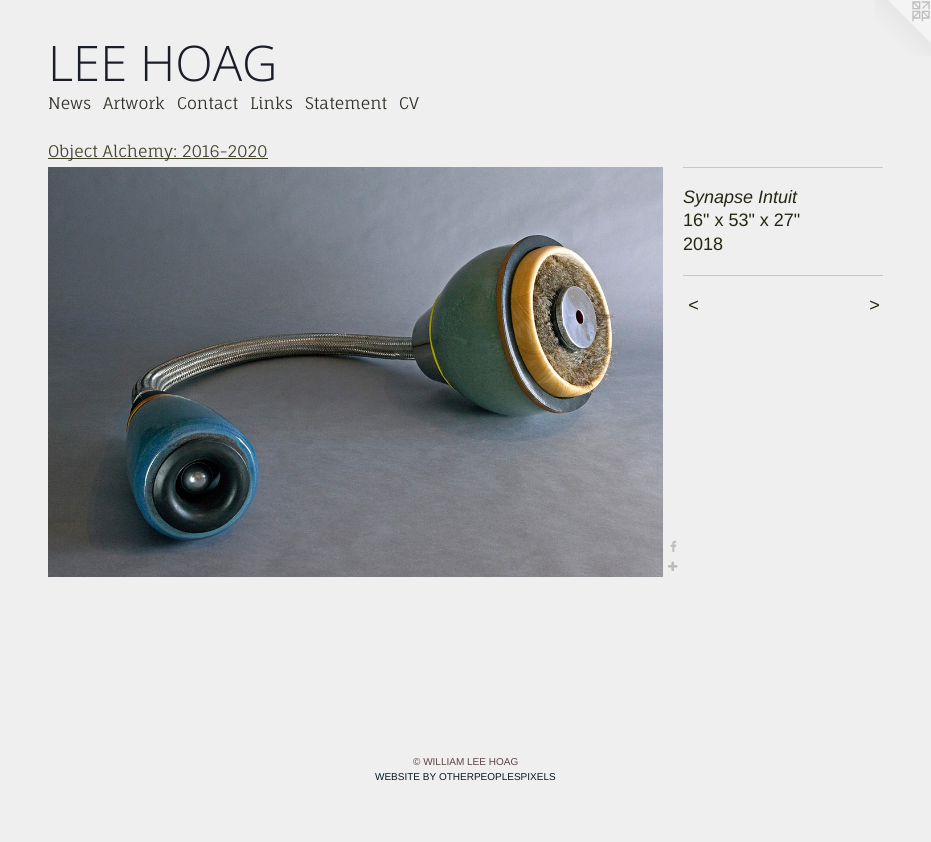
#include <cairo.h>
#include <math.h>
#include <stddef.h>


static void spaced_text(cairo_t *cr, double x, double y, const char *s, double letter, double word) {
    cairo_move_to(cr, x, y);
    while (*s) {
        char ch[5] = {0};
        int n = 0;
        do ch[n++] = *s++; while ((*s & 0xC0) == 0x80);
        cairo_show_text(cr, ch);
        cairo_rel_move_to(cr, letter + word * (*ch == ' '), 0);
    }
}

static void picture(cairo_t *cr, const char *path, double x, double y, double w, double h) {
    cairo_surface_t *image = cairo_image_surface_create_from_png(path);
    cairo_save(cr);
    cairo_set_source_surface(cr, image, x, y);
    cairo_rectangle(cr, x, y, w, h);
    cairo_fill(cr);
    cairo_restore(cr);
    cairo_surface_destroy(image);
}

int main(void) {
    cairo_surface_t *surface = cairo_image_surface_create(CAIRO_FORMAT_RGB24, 931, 842);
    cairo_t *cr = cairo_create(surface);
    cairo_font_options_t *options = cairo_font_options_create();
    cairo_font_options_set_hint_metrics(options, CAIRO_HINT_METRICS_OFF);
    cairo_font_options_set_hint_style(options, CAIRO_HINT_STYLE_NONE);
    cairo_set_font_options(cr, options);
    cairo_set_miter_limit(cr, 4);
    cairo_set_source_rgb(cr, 0.937, 0.937, 0.937);
    cairo_paint(cr);
    picture(cr, "img1.png", 875, 0, 56, 56);
    cairo_select_font_face(cr, "Open Sans Light", CAIRO_FONT_SLANT_NORMAL, CAIRO_FONT_WEIGHT_NORMAL);
    cairo_set_font_size(cr, 49);
    cairo_set_source_rgb(cr, 0.098, 0.114, 0.157);
    cairo_move_to(cr, 48, 81);
    cairo_show_text(cr, "LEE HOAG");
    cairo_select_font_face(cr, "Fauna One", CAIRO_FONT_SLANT_NORMAL, CAIRO_FONT_WEIGHT_NORMAL);
    cairo_set_font_size(cr, 16);
    cairo_set_source_rgb(cr, 0.192, 0.192, 0.165);
    cairo_move_to(cr, 48, 109);
    cairo_show_text(cr, "News");
    cairo_move_to(cr, 103, 109);
    cairo_show_text(cr, "Artwork");
    cairo_move_to(cr, 177, 109);
    cairo_show_text(cr, "Contact");
    cairo_move_to(cr, 250, 109);
    cairo_show_text(cr, "Links");
    cairo_move_to(cr, 305, 109);
    cairo_show_text(cr, "Statement");
    cairo_move_to(cr, 399, 109);
    cairo_show_text(cr, "CV");
    cairo_set_source_rgb(cr, 0.263, 0.263, 0.176);
    cairo_rectangle(cr, 48, 158, 220, 1);
    cairo_fill(cr);
    cairo_move_to(cr, 48, 157);
    cairo_show_text(cr, "Object Alchemy: 2016-2020");
    picture(cr, "img2.png", 48, 167, 615, 410);
    picture(cr, "img3.png", 670, 540, 7, 12);
    picture(cr, "img4.png", 668, 561, 10, 10);
    cairo_set_source_rgb(cr, 0.78, 0.78, 0.765);
    cairo_rectangle(cr, 683, 167, 200, 1);
    cairo_fill(cr);
    cairo_select_font_face(cr, "Liberation Sans", CAIRO_FONT_SLANT_ITALIC, CAIRO_FONT_WEIGHT_NORMAL);
    cairo_set_font_size(cr, 18);
    cairo_set_source_rgb(cr, 0.149, 0.149, 0.075);
    cairo_move_to(cr, 683, 203);
    cairo_show_text(cr, "Synapse Intuit");
    cairo_select_font_face(cr, "Liberation Sans", CAIRO_FONT_SLANT_NORMAL, CAIRO_FONT_WEIGHT_NORMAL);
    cairo_move_to(cr, 683, 226);
    cairo_show_text(cr, "16\" x 53\" x 27\"");
    cairo_move_to(cr, 683, 250);
    cairo_show_text(cr, "2018");
    cairo_set_source_rgb(cr, 0.78, 0.78, 0.765);
    cairo_rectangle(cr, 683, 275, 200, 1);
    cairo_fill(cr);
    cairo_select_font_face(cr, "Liberation Sans", CAIRO_FONT_SLANT_ITALIC, CAIRO_FONT_WEIGHT_NORMAL);
    cairo_set_source_rgb(cr, 0.149, 0.149, 0.075);
    spaced_text(cr, 688, 311, "<", 1, 0);
    spaced_text(cr, 869, 311, ">", 1, 0);
    cairo_select_font_face(cr, "Liberation Sans", CAIRO_FONT_SLANT_NORMAL, CAIRO_FONT_WEIGHT_NORMAL);
    cairo_set_font_size(cr, 10);
    cairo_set_source_rgb(cr, 0.365, 0.263, 0.263);
    cairo_move_to(cr, 413, 765);
    cairo_show_text(cr, "© WILLIAM LEE HOAG");
    cairo_set_source_rgb(cr, 0.031, 0.098, 0.133);
    cairo_move_to(cr, 375, 780);
    cairo_show_text(cr, "WEBSITE BY OTHERPEOPLESPIXELS");
    cairo_surface_write_to_png(surface, "page.png");
    cairo_font_options_destroy(options);
    cairo_destroy(cr);
    cairo_surface_destroy(surface);
    return 0;
}
